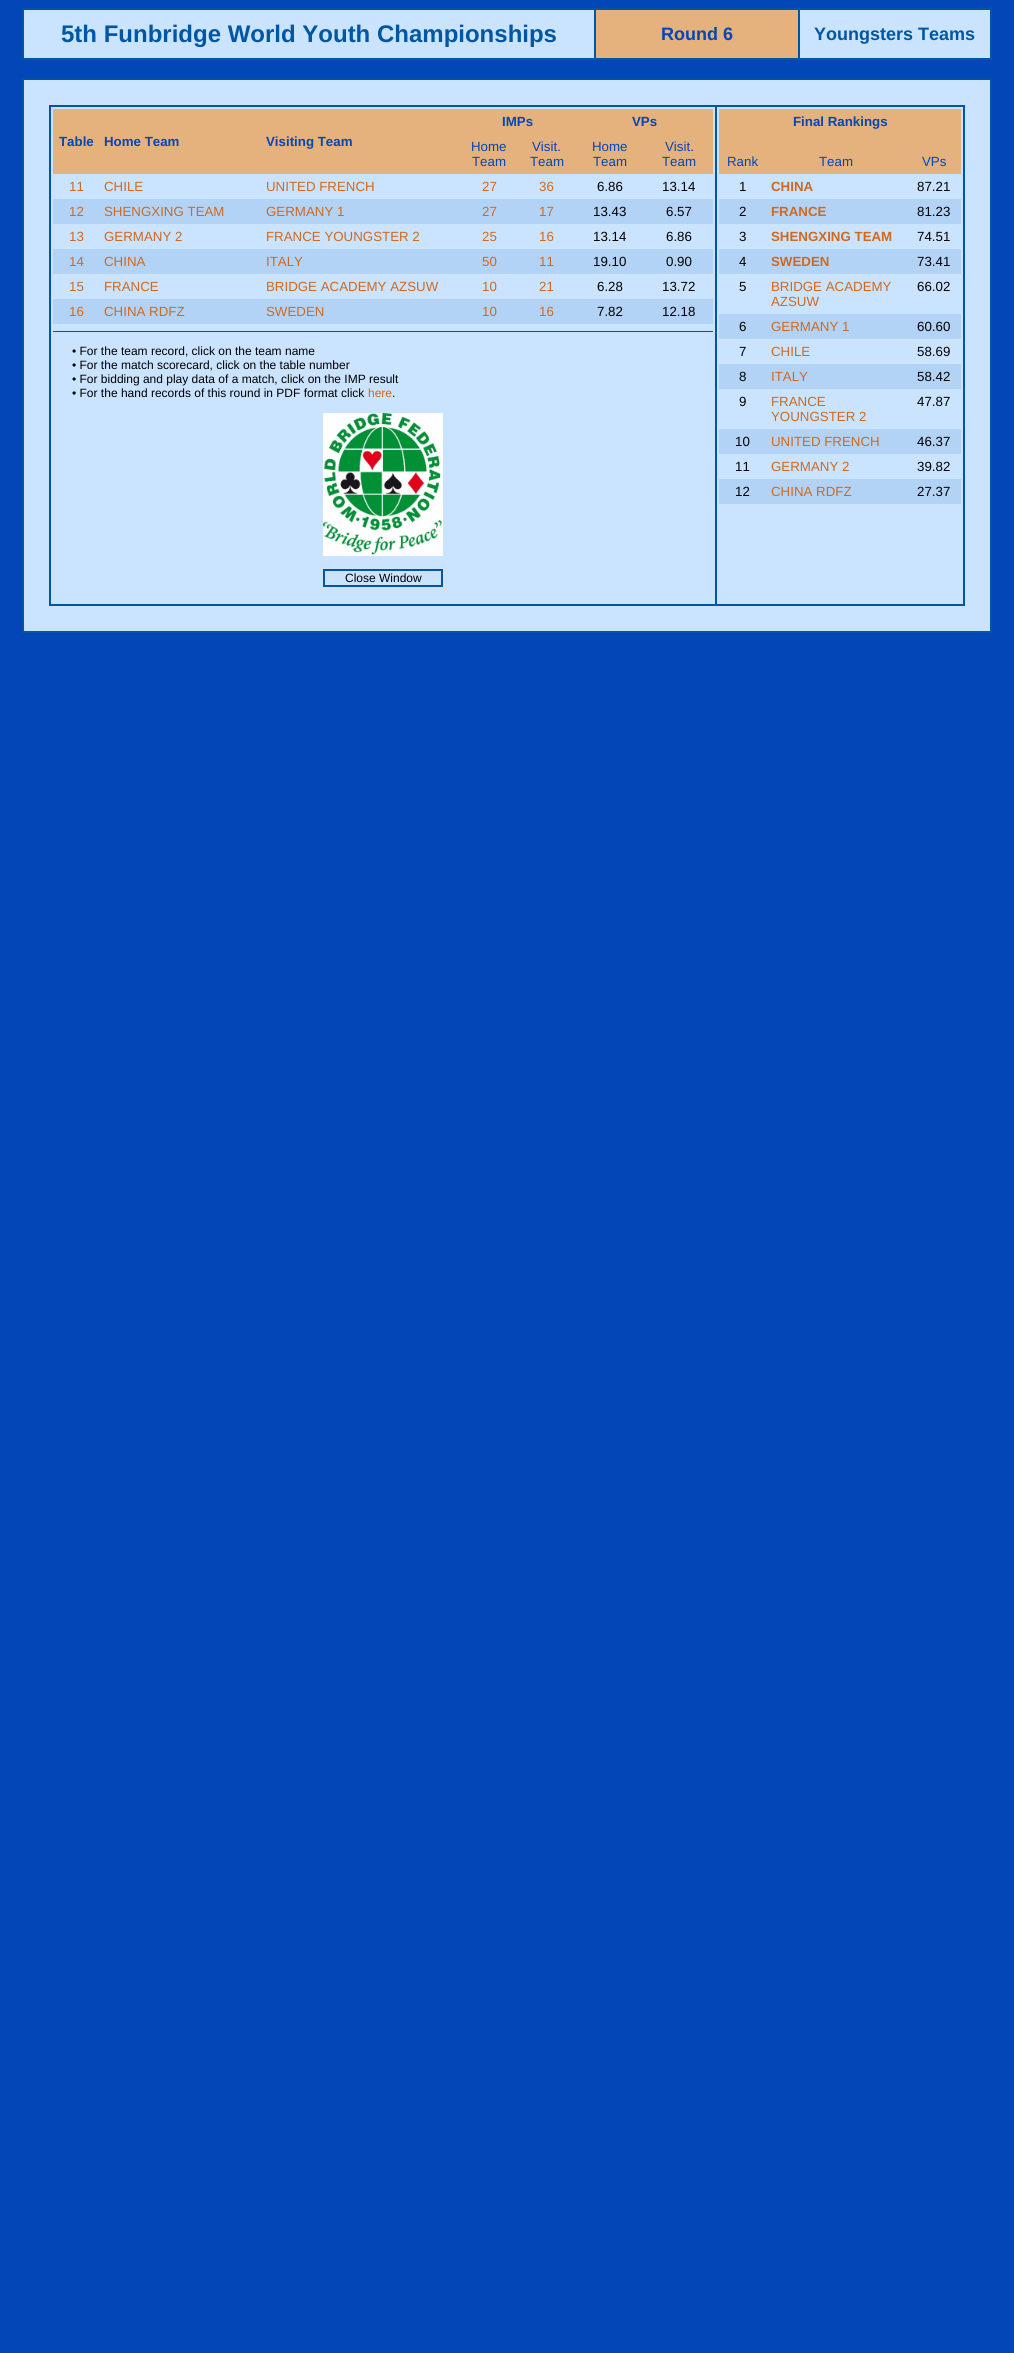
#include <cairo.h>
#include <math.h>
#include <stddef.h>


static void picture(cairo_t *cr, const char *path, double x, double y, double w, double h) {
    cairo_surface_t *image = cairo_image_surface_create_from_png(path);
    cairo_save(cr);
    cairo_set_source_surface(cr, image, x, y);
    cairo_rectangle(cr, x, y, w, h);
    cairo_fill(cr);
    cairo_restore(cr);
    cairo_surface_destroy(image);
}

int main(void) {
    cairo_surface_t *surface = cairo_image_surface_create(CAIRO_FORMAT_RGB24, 1014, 2353);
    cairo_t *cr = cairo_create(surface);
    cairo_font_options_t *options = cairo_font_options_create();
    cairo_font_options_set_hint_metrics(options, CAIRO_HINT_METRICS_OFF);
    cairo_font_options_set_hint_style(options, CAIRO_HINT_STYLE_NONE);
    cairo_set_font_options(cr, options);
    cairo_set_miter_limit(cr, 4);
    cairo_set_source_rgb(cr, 0.008, 0.275, 0.718);
    cairo_paint(cr);
    cairo_rectangle(cr, 22.5, 8.5, 969, 51);
    cairo_set_source_rgb(cr, 0, 0.337, 0.635);
    cairo_set_line_width(cr, 1);
    cairo_stroke(cr);
    cairo_set_source_rgb(cr, 0.792, 0.89, 1);
    cairo_rectangle(cr, 23.5, 9.5, 571, 49);
    cairo_fill_preserve(cr);
    cairo_set_source_rgb(cr, 0, 0.337, 0.635);
    cairo_stroke(cr);
    cairo_select_font_face(cr, "Liberation Sans", CAIRO_FONT_SLANT_NORMAL, CAIRO_FONT_WEIGHT_BOLD);
    cairo_set_font_size(cr, 24);
    cairo_move_to(cr, 61, 42);
    cairo_show_text(cr, "5th Funbridge World Youth Championships");
    cairo_set_source_rgb(cr, 0.898, 0.694, 0.486);
    cairo_rectangle(cr, 595.5, 9.5, 203, 49);
    cairo_fill_preserve(cr);
    cairo_set_source_rgb(cr, 0, 0.337, 0.635);
    cairo_stroke(cr);
    cairo_set_font_size(cr, 18);
    cairo_set_source_rgb(cr, 0.008, 0.275, 0.718);
    cairo_move_to(cr, 661, 40);
    cairo_show_text(cr, "Round 6");
    cairo_set_source_rgb(cr, 0.792, 0.89, 1);
    cairo_rectangle(cr, 799.5, 9.5, 191, 49);
    cairo_fill_preserve(cr);
    cairo_set_source_rgb(cr, 0, 0.337, 0.635);
    cairo_stroke(cr);
    cairo_move_to(cr, 814, 40);
    cairo_show_text(cr, "Youngsters Teams");
    cairo_set_source_rgb(cr, 0.792, 0.89, 1);
    cairo_rectangle(cr, 24, 80, 966, 551);
    cairo_fill(cr);
    cairo_rectangle(cr, 22.5, 78.5, 969, 554);
    cairo_set_source_rgb(cr, 0, 0.337, 0.635);
    cairo_stroke(cr);
    cairo_rectangle(cr, 23.5, 79.5, 967, 552);
    cairo_stroke(cr);
    cairo_rectangle(cr, 49.5, 105.5, 915, 500);
    cairo_stroke(cr);
    cairo_rectangle(cr, 50.5, 106.5, 665, 498);
    cairo_stroke(cr);
    cairo_set_source_rgb(cr, 0.898, 0.694, 0.486);
    cairo_rectangle(cr, 460, 109, 253, 25);
    cairo_fill(cr);
    cairo_set_font_size(cr, 13.3);
    cairo_set_source_rgb(cr, 0.008, 0.275, 0.718);
    cairo_move_to(cr, 502, 126);
    cairo_show_text(cr, "IMPs");
    cairo_move_to(cr, 632, 126);
    cairo_show_text(cr, "VPs");
    cairo_set_source_rgb(cr, 0.898, 0.694, 0.486);
    cairo_rectangle(cr, 53, 109, 407, 65);
    cairo_fill(cr);
    cairo_set_source_rgb(cr, 0.008, 0.275, 0.718);
    cairo_move_to(cr, 59, 146);
    cairo_show_text(cr, "Table");
    cairo_move_to(cr, 104, 146);
    cairo_show_text(cr, "Home Team");
    cairo_move_to(cr, 266, 146);
    cairo_show_text(cr, "Visiting Team");
    cairo_set_source_rgb(cr, 0.898, 0.694, 0.486);
    cairo_rectangle(cr, 460, 134, 253, 40);
    cairo_fill(cr);
    cairo_select_font_face(cr, "Liberation Sans", CAIRO_FONT_SLANT_NORMAL, CAIRO_FONT_WEIGHT_NORMAL);
    cairo_set_source_rgb(cr, 0.008, 0.275, 0.718);
    cairo_move_to(cr, 471, 151);
    cairo_show_text(cr, "Home");
    cairo_move_to(cr, 472, 166);
    cairo_show_text(cr, "Team");
    cairo_move_to(cr, 532, 151);
    cairo_show_text(cr, "Visit.");
    cairo_move_to(cr, 530, 166);
    cairo_show_text(cr, "Team");
    cairo_move_to(cr, 592, 151);
    cairo_show_text(cr, "Home");
    cairo_move_to(cr, 593, 166);
    cairo_show_text(cr, "Team");
    cairo_move_to(cr, 665, 151);
    cairo_show_text(cr, "Visit.");
    cairo_move_to(cr, 662, 166);
    cairo_show_text(cr, "Team");
    cairo_set_source_rgb(cr, 0.812, 0.412, 0.122);
    cairo_move_to(cr, 69, 191);
    cairo_show_text(cr, "11");
    cairo_move_to(cr, 104, 191);
    cairo_show_text(cr, "CHILE");
    cairo_move_to(cr, 266, 191);
    cairo_show_text(cr, "UNITED FRENCH");
    cairo_move_to(cr, 482, 191);
    cairo_show_text(cr, "27");
    cairo_move_to(cr, 539, 191);
    cairo_show_text(cr, "36");
    cairo_set_source_rgb(cr, 0, 0, 0);
    cairo_move_to(cr, 597, 191);
    cairo_show_text(cr, "6.86");
    cairo_move_to(cr, 662, 191);
    cairo_show_text(cr, "13.14");
    cairo_set_source_rgb(cr, 0.698, 0.827, 0.961);
    cairo_rectangle(cr, 53, 199, 660, 25);
    cairo_fill(cr);
    cairo_set_source_rgb(cr, 0.812, 0.412, 0.122);
    cairo_move_to(cr, 69, 216);
    cairo_show_text(cr, "12");
    cairo_move_to(cr, 104, 216);
    cairo_show_text(cr, "SHENGXING TEAM");
    cairo_move_to(cr, 266, 216);
    cairo_show_text(cr, "GERMANY 1");
    cairo_move_to(cr, 482, 216);
    cairo_show_text(cr, "27");
    cairo_move_to(cr, 539, 216);
    cairo_show_text(cr, "17");
    cairo_set_source_rgb(cr, 0, 0, 0);
    cairo_move_to(cr, 593, 216);
    cairo_show_text(cr, "13.43");
    cairo_move_to(cr, 666, 216);
    cairo_show_text(cr, "6.57");
    cairo_set_source_rgb(cr, 0.812, 0.412, 0.122);
    cairo_move_to(cr, 69, 241);
    cairo_show_text(cr, "13");
    cairo_move_to(cr, 104, 241);
    cairo_show_text(cr, "GERMANY 2");
    cairo_move_to(cr, 266, 241);
    cairo_show_text(cr, "FRANCE YOUNGSTER 2");
    cairo_move_to(cr, 482, 241);
    cairo_show_text(cr, "25");
    cairo_move_to(cr, 539, 241);
    cairo_show_text(cr, "16");
    cairo_set_source_rgb(cr, 0, 0, 0);
    cairo_move_to(cr, 593, 241);
    cairo_show_text(cr, "13.14");
    cairo_move_to(cr, 666, 241);
    cairo_show_text(cr, "6.86");
    cairo_set_source_rgb(cr, 0.698, 0.827, 0.961);
    cairo_rectangle(cr, 53, 249, 660, 25);
    cairo_fill(cr);
    cairo_set_source_rgb(cr, 0.812, 0.412, 0.122);
    cairo_move_to(cr, 69, 266);
    cairo_show_text(cr, "14");
    cairo_move_to(cr, 104, 266);
    cairo_show_text(cr, "CHINA");
    cairo_move_to(cr, 266, 266);
    cairo_show_text(cr, "ITALY");
    cairo_move_to(cr, 482, 266);
    cairo_show_text(cr, "50");
    cairo_move_to(cr, 539, 266);
    cairo_show_text(cr, "11");
    cairo_set_source_rgb(cr, 0, 0, 0);
    cairo_move_to(cr, 593, 266);
    cairo_show_text(cr, "19.10");
    cairo_move_to(cr, 666, 266);
    cairo_show_text(cr, "0.90");
    cairo_set_source_rgb(cr, 0.812, 0.412, 0.122);
    cairo_move_to(cr, 69, 291);
    cairo_show_text(cr, "15");
    cairo_move_to(cr, 104, 291);
    cairo_show_text(cr, "FRANCE");
    cairo_move_to(cr, 266, 291);
    cairo_show_text(cr, "BRIDGE ACADEMY AZSUW");
    cairo_move_to(cr, 482, 291);
    cairo_show_text(cr, "10");
    cairo_move_to(cr, 539, 291);
    cairo_show_text(cr, "21");
    cairo_set_source_rgb(cr, 0, 0, 0);
    cairo_move_to(cr, 597, 291);
    cairo_show_text(cr, "6.28");
    cairo_move_to(cr, 662, 291);
    cairo_show_text(cr, "13.72");
    cairo_set_source_rgb(cr, 0.698, 0.827, 0.961);
    cairo_rectangle(cr, 53, 299, 660, 25);
    cairo_fill(cr);
    cairo_set_source_rgb(cr, 0.812, 0.412, 0.122);
    cairo_move_to(cr, 69, 316);
    cairo_show_text(cr, "16");
    cairo_move_to(cr, 104, 316);
    cairo_show_text(cr, "CHINA RDFZ");
    cairo_move_to(cr, 266, 316);
    cairo_show_text(cr, "SWEDEN");
    cairo_move_to(cr, 482, 316);
    cairo_show_text(cr, "10");
    cairo_move_to(cr, 539, 316);
    cairo_show_text(cr, "16");
    cairo_set_source_rgb(cr, 0, 0, 0);
    cairo_move_to(cr, 597, 316);
    cairo_show_text(cr, "7.82");
    cairo_move_to(cr, 662, 316);
    cairo_show_text(cr, "12.18");
    cairo_set_source_rgb(cr, 0, 0.337, 0.635);
    cairo_rectangle(cr, 53, 331, 660, 1);
    cairo_fill(cr);
    cairo_set_font_size(cr, 12);
    cairo_set_source_rgb(cr, 0, 0, 0);
    cairo_move_to(cr, 72, 355);
    cairo_show_text(cr, "• For the team record, click on the team name");
    cairo_move_to(cr, 72, 369);
    cairo_show_text(cr, "• For the match scorecard, click on the table number");
    cairo_move_to(cr, 72, 383);
    cairo_show_text(cr, "• For bidding and play data of a match, click on the IMP result");
    cairo_move_to(cr, 72, 397);
    cairo_show_text(cr, "• For the hand records of this round in PDF format click");
    cairo_set_source_rgb(cr, 0.812, 0.412, 0.122);
    cairo_move_to(cr, 368, 397);
    cairo_show_text(cr, "here");
    cairo_set_source_rgb(cr, 0, 0, 0);
    cairo_move_to(cr, 392, 397);
    cairo_show_text(cr, ".");
    picture(cr, "img1.png", 323, 413, 120, 143);
    cairo_rectangle(cr, 323.5, 569.5, 119, 17);
    cairo_set_source_rgb(cr, 0, 0.337, 0.635);
    cairo_stroke(cr);
    cairo_rectangle(cr, 324.5, 570.5, 117, 15);
    cairo_stroke(cr);
    cairo_set_source_rgb(cr, 0, 0, 0);
    cairo_move_to(cr, 345, 582);
    cairo_show_text(cr, "Close Window");
    cairo_rectangle(cr, 716.5, 106.5, 247, 498);
    cairo_set_source_rgb(cr, 0, 0.337, 0.635);
    cairo_stroke(cr);
    cairo_set_source_rgb(cr, 0.898, 0.694, 0.486);
    cairo_rectangle(cr, 719, 109, 242, 40);
    cairo_fill(cr);
    cairo_select_font_face(cr, "Liberation Sans", CAIRO_FONT_SLANT_NORMAL, CAIRO_FONT_WEIGHT_BOLD);
    cairo_set_font_size(cr, 13.3);
    cairo_set_source_rgb(cr, 0.008, 0.275, 0.718);
    cairo_move_to(cr, 793, 126);
    cairo_show_text(cr, "Final Rankings");
    cairo_set_source_rgb(cr, 0.898, 0.694, 0.486);
    cairo_rectangle(cr, 719, 149, 242, 25);
    cairo_fill(cr);
    cairo_select_font_face(cr, "Liberation Sans", CAIRO_FONT_SLANT_NORMAL, CAIRO_FONT_WEIGHT_NORMAL);
    cairo_set_source_rgb(cr, 0.008, 0.275, 0.718);
    cairo_move_to(cr, 727, 166);
    cairo_show_text(cr, "Rank");
    cairo_move_to(cr, 819, 166);
    cairo_show_text(cr, "Team");
    cairo_move_to(cr, 922, 166);
    cairo_show_text(cr, "VPs");
    cairo_set_source_rgb(cr, 0, 0, 0);
    cairo_move_to(cr, 739, 191);
    cairo_show_text(cr, "1");
    cairo_select_font_face(cr, "Liberation Sans", CAIRO_FONT_SLANT_NORMAL, CAIRO_FONT_WEIGHT_BOLD);
    cairo_set_source_rgb(cr, 0.812, 0.412, 0.122);
    cairo_move_to(cr, 771, 191);
    cairo_show_text(cr, "CHINA");
    cairo_select_font_face(cr, "Liberation Sans", CAIRO_FONT_SLANT_NORMAL, CAIRO_FONT_WEIGHT_NORMAL);
    cairo_set_source_rgb(cr, 0, 0, 0);
    cairo_move_to(cr, 917, 191);
    cairo_show_text(cr, "87.21");
    cairo_set_source_rgb(cr, 0.698, 0.827, 0.961);
    cairo_rectangle(cr, 719, 199, 242, 25);
    cairo_fill(cr);
    cairo_set_source_rgb(cr, 0, 0, 0);
    cairo_move_to(cr, 739, 216);
    cairo_show_text(cr, "2");
    cairo_select_font_face(cr, "Liberation Sans", CAIRO_FONT_SLANT_NORMAL, CAIRO_FONT_WEIGHT_BOLD);
    cairo_set_source_rgb(cr, 0.812, 0.412, 0.122);
    cairo_move_to(cr, 771, 216);
    cairo_show_text(cr, "FRANCE");
    cairo_select_font_face(cr, "Liberation Sans", CAIRO_FONT_SLANT_NORMAL, CAIRO_FONT_WEIGHT_NORMAL);
    cairo_set_source_rgb(cr, 0, 0, 0);
    cairo_move_to(cr, 917, 216);
    cairo_show_text(cr, "81.23");
    cairo_move_to(cr, 739, 241);
    cairo_show_text(cr, "3");
    cairo_select_font_face(cr, "Liberation Sans", CAIRO_FONT_SLANT_NORMAL, CAIRO_FONT_WEIGHT_BOLD);
    cairo_set_source_rgb(cr, 0.812, 0.412, 0.122);
    cairo_move_to(cr, 771, 241);
    cairo_show_text(cr, "SHENGXING TEAM");
    cairo_select_font_face(cr, "Liberation Sans", CAIRO_FONT_SLANT_NORMAL, CAIRO_FONT_WEIGHT_NORMAL);
    cairo_set_source_rgb(cr, 0, 0, 0);
    cairo_move_to(cr, 917, 241);
    cairo_show_text(cr, "74.51");
    cairo_set_source_rgb(cr, 0.698, 0.827, 0.961);
    cairo_rectangle(cr, 719, 249, 242, 25);
    cairo_fill(cr);
    cairo_set_source_rgb(cr, 0, 0, 0);
    cairo_move_to(cr, 739, 266);
    cairo_show_text(cr, "4");
    cairo_select_font_face(cr, "Liberation Sans", CAIRO_FONT_SLANT_NORMAL, CAIRO_FONT_WEIGHT_BOLD);
    cairo_set_source_rgb(cr, 0.812, 0.412, 0.122);
    cairo_move_to(cr, 771, 266);
    cairo_show_text(cr, "SWEDEN");
    cairo_select_font_face(cr, "Liberation Sans", CAIRO_FONT_SLANT_NORMAL, CAIRO_FONT_WEIGHT_NORMAL);
    cairo_set_source_rgb(cr, 0, 0, 0);
    cairo_move_to(cr, 917, 266);
    cairo_show_text(cr, "73.41");
    cairo_move_to(cr, 739, 291);
    cairo_show_text(cr, "5");
    cairo_set_source_rgb(cr, 0.812, 0.412, 0.122);
    cairo_move_to(cr, 771, 291);
    cairo_show_text(cr, "BRIDGE ACADEMY");
    cairo_move_to(cr, 771, 306);
    cairo_show_text(cr, "AZSUW");
    cairo_set_source_rgb(cr, 0, 0, 0);
    cairo_move_to(cr, 917, 291);
    cairo_show_text(cr, "66.02");
    cairo_set_source_rgb(cr, 0.698, 0.827, 0.961);
    cairo_rectangle(cr, 719, 314, 242, 25);
    cairo_fill(cr);
    cairo_set_source_rgb(cr, 0, 0, 0);
    cairo_move_to(cr, 739, 331);
    cairo_show_text(cr, "6");
    cairo_set_source_rgb(cr, 0.812, 0.412, 0.122);
    cairo_move_to(cr, 771, 331);
    cairo_show_text(cr, "GERMANY 1");
    cairo_set_source_rgb(cr, 0, 0, 0);
    cairo_move_to(cr, 917, 331);
    cairo_show_text(cr, "60.60");
    cairo_move_to(cr, 739, 356);
    cairo_show_text(cr, "7");
    cairo_set_source_rgb(cr, 0.812, 0.412, 0.122);
    cairo_move_to(cr, 771, 356);
    cairo_show_text(cr, "CHILE");
    cairo_set_source_rgb(cr, 0, 0, 0);
    cairo_move_to(cr, 917, 356);
    cairo_show_text(cr, "58.69");
    cairo_set_source_rgb(cr, 0.698, 0.827, 0.961);
    cairo_rectangle(cr, 719, 364, 242, 25);
    cairo_fill(cr);
    cairo_set_source_rgb(cr, 0, 0, 0);
    cairo_move_to(cr, 739, 381);
    cairo_show_text(cr, "8");
    cairo_set_source_rgb(cr, 0.812, 0.412, 0.122);
    cairo_move_to(cr, 771, 381);
    cairo_show_text(cr, "ITALY");
    cairo_set_source_rgb(cr, 0, 0, 0);
    cairo_move_to(cr, 917, 381);
    cairo_show_text(cr, "58.42");
    cairo_move_to(cr, 739, 406);
    cairo_show_text(cr, "9");
    cairo_set_source_rgb(cr, 0.812, 0.412, 0.122);
    cairo_move_to(cr, 771, 406);
    cairo_show_text(cr, "FRANCE");
    cairo_move_to(cr, 771, 421);
    cairo_show_text(cr, "YOUNGSTER 2");
    cairo_set_source_rgb(cr, 0, 0, 0);
    cairo_move_to(cr, 917, 406);
    cairo_show_text(cr, "47.87");
    cairo_set_source_rgb(cr, 0.698, 0.827, 0.961);
    cairo_rectangle(cr, 719, 429, 242, 25);
    cairo_fill(cr);
    cairo_set_source_rgb(cr, 0, 0, 0);
    cairo_move_to(cr, 735, 446);
    cairo_show_text(cr, "10");
    cairo_set_source_rgb(cr, 0.812, 0.412, 0.122);
    cairo_move_to(cr, 771, 446);
    cairo_show_text(cr, "UNITED FRENCH");
    cairo_set_source_rgb(cr, 0, 0, 0);
    cairo_move_to(cr, 917, 446);
    cairo_show_text(cr, "46.37");
    cairo_move_to(cr, 735, 471);
    cairo_show_text(cr, "11");
    cairo_set_source_rgb(cr, 0.812, 0.412, 0.122);
    cairo_move_to(cr, 771, 471);
    cairo_show_text(cr, "GERMANY 2");
    cairo_set_source_rgb(cr, 0, 0, 0);
    cairo_move_to(cr, 917, 471);
    cairo_show_text(cr, "39.82");
    cairo_set_source_rgb(cr, 0.698, 0.827, 0.961);
    cairo_rectangle(cr, 719, 479, 242, 25);
    cairo_fill(cr);
    cairo_set_source_rgb(cr, 0, 0, 0);
    cairo_move_to(cr, 735, 496);
    cairo_show_text(cr, "12");
    cairo_set_source_rgb(cr, 0.812, 0.412, 0.122);
    cairo_move_to(cr, 771, 496);
    cairo_show_text(cr, "CHINA RDFZ");
    cairo_set_source_rgb(cr, 0, 0, 0);
    cairo_move_to(cr, 917, 496);
    cairo_show_text(cr, "27.37");
    cairo_surface_write_to_png(surface, "page.png");
    cairo_font_options_destroy(options);
    cairo_destroy(cr);
    cairo_surface_destroy(surface);
    return 0;
}
